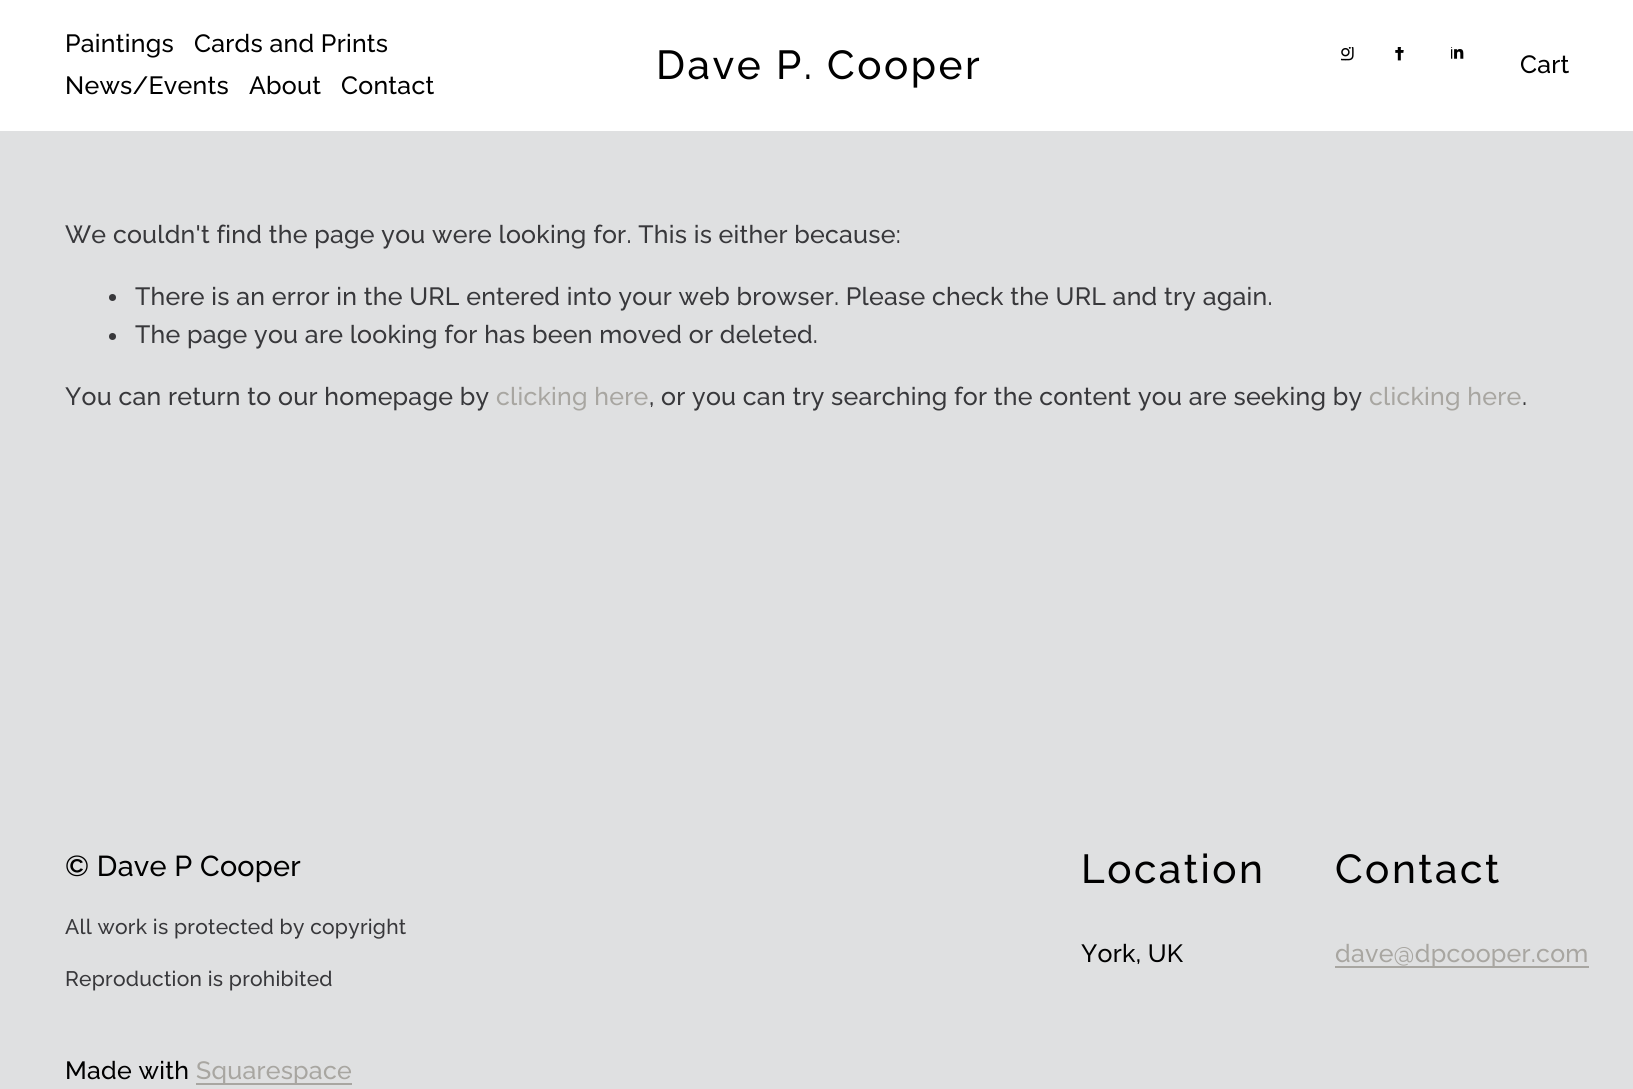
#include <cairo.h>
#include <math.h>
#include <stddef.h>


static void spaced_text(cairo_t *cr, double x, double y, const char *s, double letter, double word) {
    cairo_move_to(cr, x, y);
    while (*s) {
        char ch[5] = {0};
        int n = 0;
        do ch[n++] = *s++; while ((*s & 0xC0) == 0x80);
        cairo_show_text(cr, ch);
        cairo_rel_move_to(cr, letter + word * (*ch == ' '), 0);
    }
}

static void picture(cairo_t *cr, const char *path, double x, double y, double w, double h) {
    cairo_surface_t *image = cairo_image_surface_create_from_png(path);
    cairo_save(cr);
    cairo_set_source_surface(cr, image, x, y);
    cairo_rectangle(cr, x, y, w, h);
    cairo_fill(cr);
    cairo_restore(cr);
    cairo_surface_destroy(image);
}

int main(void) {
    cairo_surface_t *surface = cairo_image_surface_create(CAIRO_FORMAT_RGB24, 1633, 1089);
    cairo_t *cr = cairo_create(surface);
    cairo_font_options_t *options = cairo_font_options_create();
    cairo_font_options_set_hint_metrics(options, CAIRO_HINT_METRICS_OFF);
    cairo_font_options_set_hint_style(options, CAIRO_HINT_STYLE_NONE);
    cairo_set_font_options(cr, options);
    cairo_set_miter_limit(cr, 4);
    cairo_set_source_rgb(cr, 0.875, 0.878, 0.882);
    cairo_paint(cr);
    cairo_set_source_rgb(cr, 1, 1, 1);
    cairo_rectangle(cr, 0, 0, 1633, 131);
    cairo_fill(cr);
    cairo_select_font_face(cr, "Raleway Medium", CAIRO_FONT_SLANT_NORMAL, CAIRO_FONT_WEIGHT_NORMAL);
    cairo_set_font_size(cr, 24.9);
    cairo_set_source_rgb(cr, 0, 0, 0);
    spaced_text(cr, 65, 52, "Paintings", 0.25, 0);
    spaced_text(cr, 194, 52, "Cards and Prints", 0.25, 0);
    spaced_text(cr, 65, 94, "News/Events", 0.25, 0);
    spaced_text(cr, 249, 94, "About", 0.25, 0);
    spaced_text(cr, 341, 94, "Contact", 0.25, 0);
    cairo_set_font_size(cr, 40.5);
    spaced_text(cr, 656, 79, "Dave P. Cooper", 2.5, 0);
    picture(cr, "img1.png", 1341, 47, 13, 14);
    picture(cr, "img2.png", 1395, 47, 9, 14);
    picture(cr, "img3.png", 1451, 47, 13, 12);
    cairo_set_font_size(cr, 24.9);
    spaced_text(cr, 1520, 73, "Cart", 0.25, 0);
    cairo_set_source_rgb(cr, 0.22, 0.22, 0.231);
    spaced_text(cr, 65, 243, "We couldn't find the page you were looking for. This is either because:", 0.25, 0);
    cairo_new_path(cr);
    cairo_arc(cr, 112.5, 297.5, 3.5, 0, 2 * M_PI);
    cairo_fill(cr);
    spaced_text(cr, 135, 305, "There is an error in the URL entered into your web browser. Please check the URL and try again.", 0.25, 0);
    cairo_new_path(cr);
    cairo_arc(cr, 112.5, 336.5, 3.5, 0, 2 * M_PI);
    cairo_fill(cr);
    spaced_text(cr, 135, 343, "The page you are looking for has been moved or deleted.", 0.25, 0);
    spaced_text(cr, 65, 405, "You can return to our homepage by", 0.25, 0);
    cairo_set_source_rgb(cr, 0.659, 0.651, 0.631);
    spaced_text(cr, 496, 405, "clicking here", 0.25, 0);
    cairo_set_source_rgb(cr, 0.22, 0.22, 0.231);
    spaced_text(cr, 649, 405, ", or you can try searching for the content you are seeking by", 0.25, 0);
    cairo_set_source_rgb(cr, 0.659, 0.651, 0.631);
    spaced_text(cr, 1369, 405, "clicking here", 0.25, 0);
    cairo_set_source_rgb(cr, 0.22, 0.22, 0.231);
    spaced_text(cr, 1522, 405, ".", 0.25, 0);
    cairo_set_font_size(cr, 28.75);
    cairo_set_source_rgb(cr, 0, 0, 0);
    spaced_text(cr, 65, 876, "© Dave P Cooper", 0.25, 0);
    cairo_set_font_size(cr, 21);
    cairo_set_source_rgb(cr, 0.22, 0.22, 0.231);
    spaced_text(cr, 65, 934, "All work is protected by copyright", 0.25, 0);
    spaced_text(cr, 65, 986, "Reproduction is prohibited", 0.25, 0);
    cairo_set_font_size(cr, 40.5);
    cairo_set_source_rgb(cr, 0, 0, 0);
    spaced_text(cr, 1081, 883, "Location", 2.5, 0);
    cairo_set_font_size(cr, 24.9);
    spaced_text(cr, 1081, 962, "York, UK", 0.25, 0);
    cairo_set_font_size(cr, 40.5);
    spaced_text(cr, 1335, 883, "Contact", 2.5, 0);
    cairo_set_source_rgb(cr, 0.659, 0.651, 0.631);
    cairo_rectangle(cr, 1335, 966, 254, 2);
    cairo_fill(cr);
    cairo_set_font_size(cr, 24.9);
    spaced_text(cr, 1335, 962, "dave@dpcooper.com", 0.25, 0);
    cairo_set_source_rgb(cr, 0, 0, 0);
    spaced_text(cr, 65, 1079, "Made with", 0.25, 0);
    cairo_set_source_rgb(cr, 0.659, 0.651, 0.631);
    cairo_rectangle(cr, 196, 1083, 156, 2);
    cairo_fill(cr);
    spaced_text(cr, 196, 1079, "Squarespace", 0.25, 0);
    cairo_surface_write_to_png(surface, "page.png");
    cairo_font_options_destroy(options);
    cairo_destroy(cr);
    cairo_surface_destroy(surface);
    return 0;
}
